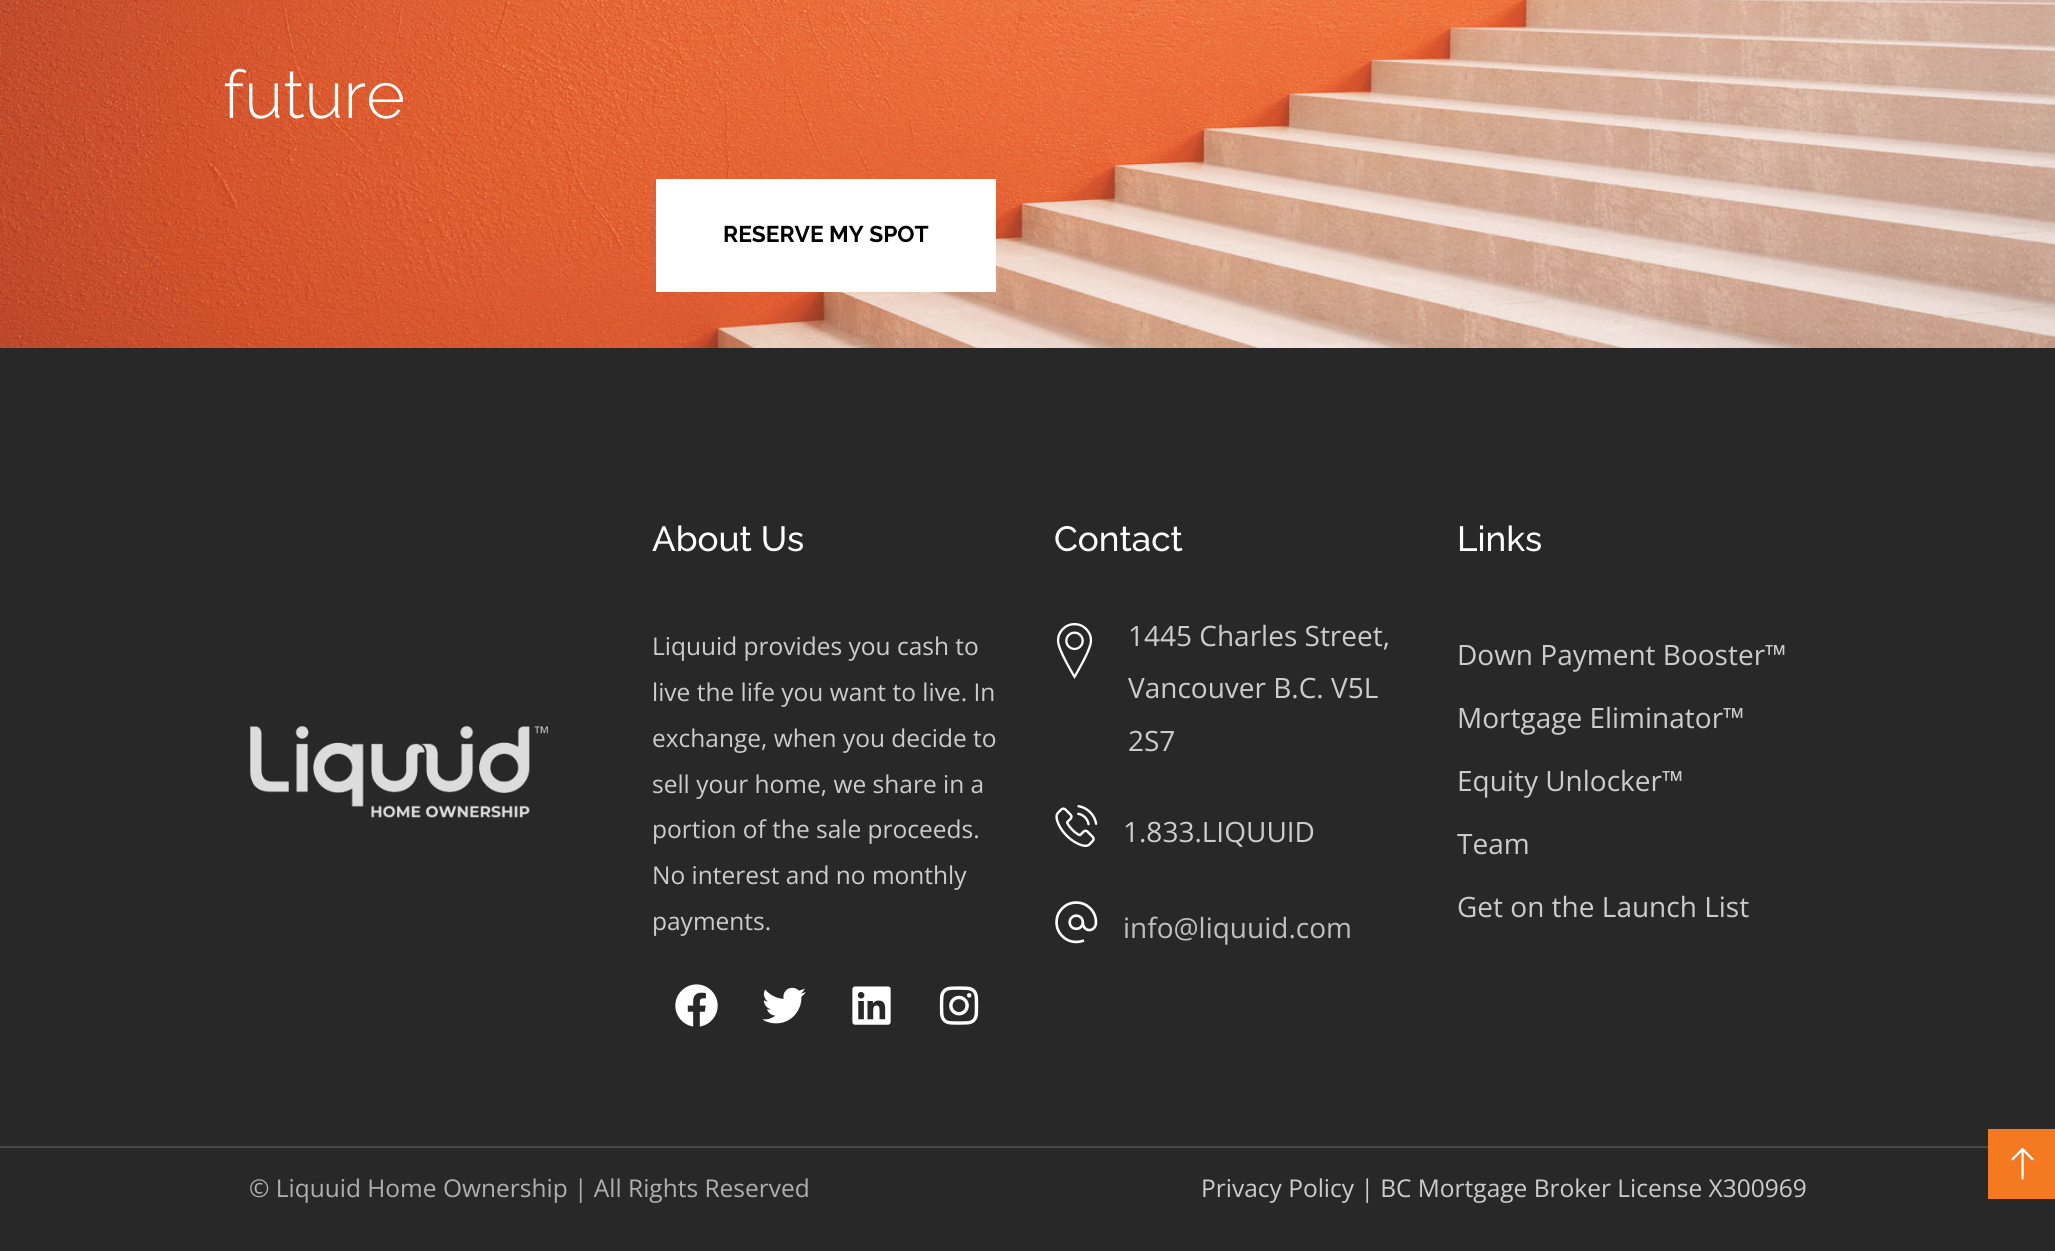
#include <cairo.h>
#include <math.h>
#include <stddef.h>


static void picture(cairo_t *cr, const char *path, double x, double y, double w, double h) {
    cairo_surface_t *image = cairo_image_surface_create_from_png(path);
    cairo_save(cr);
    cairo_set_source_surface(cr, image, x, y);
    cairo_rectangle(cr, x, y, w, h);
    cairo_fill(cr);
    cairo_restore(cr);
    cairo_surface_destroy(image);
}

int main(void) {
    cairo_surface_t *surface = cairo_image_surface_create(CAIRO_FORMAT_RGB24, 2055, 1251);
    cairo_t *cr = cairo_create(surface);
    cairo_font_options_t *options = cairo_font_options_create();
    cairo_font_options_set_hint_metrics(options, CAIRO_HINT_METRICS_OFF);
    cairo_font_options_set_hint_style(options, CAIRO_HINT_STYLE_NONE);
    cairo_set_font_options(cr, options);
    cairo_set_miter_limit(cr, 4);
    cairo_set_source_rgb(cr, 1, 1, 1);
    cairo_paint(cr);
    picture(cr, "img1.png", 0, 0, 2055, 348);
    cairo_select_font_face(cr, "Raleway Light", CAIRO_FONT_SLANT_NORMAL, CAIRO_FONT_WEIGHT_NORMAL);
    cairo_set_font_size(cr, 66.5);
    cairo_set_source_rgb(cr, 1, 1, 1);
    cairo_move_to(cr, 223, 118);
    cairo_show_text(cr, "future");
    cairo_rectangle(cr, 656, 179, 340, 113);
    cairo_fill(cr);
    cairo_select_font_face(cr, "Raleway", CAIRO_FONT_SLANT_NORMAL, CAIRO_FONT_WEIGHT_BOLD);
    cairo_set_font_size(cr, 22.75);
    cairo_set_source_rgb(cr, 0, 0, 0);
    cairo_move_to(cr, 723, 242);
    cairo_show_text(cr, "RESERVE MY SPOT");
    cairo_set_source_rgb(cr, 0.157, 0.157, 0.157);
    cairo_rectangle(cr, 0, 348, 2055, 903);
    cairo_fill(cr);
    picture(cr, "img2.png", 250, 726, 298, 92);
    cairo_select_font_face(cr, "Raleway Medium", CAIRO_FONT_SLANT_NORMAL, CAIRO_FONT_WEIGHT_NORMAL);
    cairo_set_font_size(cr, 35);
    cairo_set_source_rgb(cr, 1, 1, 1);
    cairo_move_to(cr, 652, 551);
    cairo_show_text(cr, "About Us");
    cairo_select_font_face(cr, "Open Sans", CAIRO_FONT_SLANT_NORMAL, CAIRO_FONT_WEIGHT_NORMAL);
    cairo_set_font_size(cr, 24.5);
    cairo_set_source_rgb(cr, 0.8, 0.8, 0.8);
    cairo_move_to(cr, 652, 655);
    cairo_show_text(cr, "Liquuid provides you cash to");
    cairo_move_to(cr, 652, 701);
    cairo_show_text(cr, "live the life you want to live. In");
    cairo_move_to(cr, 652, 747);
    cairo_show_text(cr, "exchange, when you decide to");
    cairo_move_to(cr, 652, 793);
    cairo_show_text(cr, "sell your home, we share in a");
    cairo_move_to(cr, 652, 838);
    cairo_show_text(cr, "portion of the sale proceeds.");
    cairo_move_to(cr, 652, 884);
    cairo_show_text(cr, "No interest and no monthly");
    cairo_move_to(cr, 652, 930);
    cairo_show_text(cr, "payments.");
    picture(cr, "img3.png", 675, 984, 43, 43);
    picture(cr, "img4.png", 762, 987, 44, 37);
    picture(cr, "img5.png", 852, 986, 39, 39);
    picture(cr, "img6.png", 939, 986, 40, 39);
    cairo_select_font_face(cr, "Raleway Medium", CAIRO_FONT_SLANT_NORMAL, CAIRO_FONT_WEIGHT_NORMAL);
    cairo_set_font_size(cr, 35);
    cairo_set_source_rgb(cr, 1, 1, 1);
    cairo_move_to(cr, 1054, 551);
    cairo_show_text(cr, "Contact");
    picture(cr, "img7.png", 1056, 623, 37, 56);
    cairo_select_font_face(cr, "Open Sans", CAIRO_FONT_SLANT_NORMAL, CAIRO_FONT_WEIGHT_NORMAL);
    cairo_set_font_size(cr, 28);
    cairo_set_source_rgb(cr, 0.8, 0.8, 0.8);
    cairo_move_to(cr, 1128, 646);
    cairo_show_text(cr, "1445 Charles Street,");
    cairo_move_to(cr, 1128, 698);
    cairo_show_text(cr, "Vancouver B.C. V5L");
    cairo_move_to(cr, 1128, 751);
    cairo_show_text(cr, "2S7");
    picture(cr, "img8.png", 1055, 805, 43, 42);
    cairo_move_to(cr, 1123, 842);
    cairo_show_text(cr, "1.833.LIQUUID");
    picture(cr, "img9.png", 1055, 901, 43, 43);
    cairo_set_source_rgb(cr, 0.749, 0.749, 0.749);
    cairo_move_to(cr, 1123, 938);
    cairo_show_text(cr, "info@liquuid.com");
    cairo_select_font_face(cr, "Raleway Medium", CAIRO_FONT_SLANT_NORMAL, CAIRO_FONT_WEIGHT_NORMAL);
    cairo_set_font_size(cr, 35);
    cairo_set_source_rgb(cr, 1, 1, 1);
    cairo_move_to(cr, 1457, 551);
    cairo_show_text(cr, "Links");
    cairo_select_font_face(cr, "Open Sans", CAIRO_FONT_SLANT_NORMAL, CAIRO_FONT_WEIGHT_NORMAL);
    cairo_set_font_size(cr, 28);
    cairo_set_source_rgb(cr, 0.8, 0.8, 0.8);
    cairo_move_to(cr, 1457, 665);
    cairo_show_text(cr, "Down Payment Booster™");
    cairo_move_to(cr, 1457, 728);
    cairo_show_text(cr, "Mortgage Eliminator™");
    cairo_move_to(cr, 1457, 791);
    cairo_show_text(cr, "Equity Unlocker™");
    cairo_move_to(cr, 1457, 854);
    cairo_show_text(cr, "Team");
    cairo_move_to(cr, 1457, 917);
    cairo_show_text(cr, "Get on the Launch List");
    cairo_set_source_rgb(cr, 0.282, 0.282, 0.282);
    cairo_rectangle(cr, 0, 1146, 1988, 2);
    cairo_fill(cr);
    cairo_set_font_size(cr, 24.5);
    cairo_set_source_rgb(cr, 0.686, 0.686, 0.686);
    cairo_move_to(cr, 249, 1197);
    cairo_show_text(cr, "© Liquuid Home Ownership | All Rights Reserved");
    cairo_set_source_rgb(cr, 0.8, 0.8, 0.8);
    cairo_move_to(cr, 1201, 1197);
    cairo_show_text(cr, "Privacy Policy | BC Mortgage Broker License X300969");
    cairo_set_source_rgb(cr, 0.957, 0.475, 0.125);
    cairo_rectangle(cr, 1988, 1129, 67, 70);
    cairo_fill(cr);
    picture(cr, "img10.png", 2011, 1148, 23, 32);
    cairo_surface_write_to_png(surface, "page.png");
    cairo_font_options_destroy(options);
    cairo_destroy(cr);
    cairo_surface_destroy(surface);
    return 0;
}
